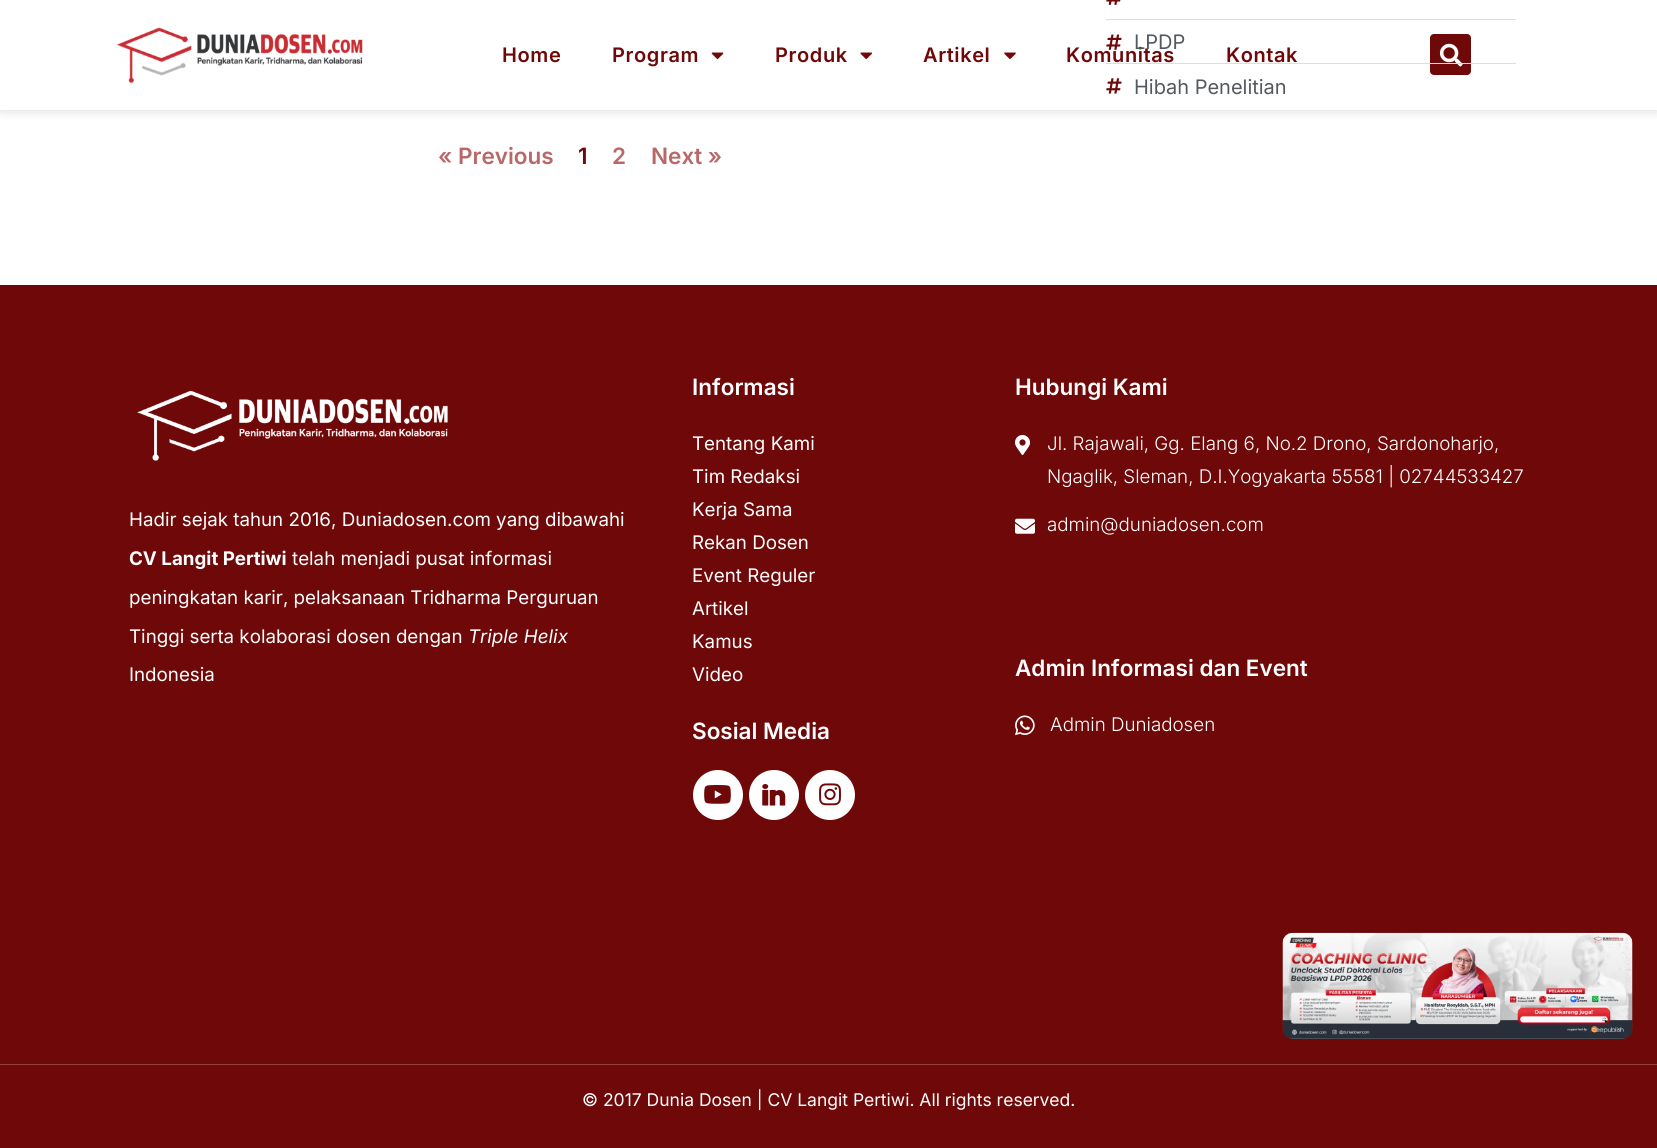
#include <cairo.h>
#include <math.h>
#include <stddef.h>


static void spaced_text(cairo_t *cr, double x, double y, const char *s, double letter, double word) {
    cairo_move_to(cr, x, y);
    while (*s) {
        char ch[5] = {0};
        int n = 0;
        do ch[n++] = *s++; while ((*s & 0xC0) == 0x80);
        cairo_show_text(cr, ch);
        cairo_rel_move_to(cr, letter + word * (*ch == ' '), 0);
    }
}

static void round_rect(cairo_t *cr, double x, double y, double w, double h, double r) {
    cairo_new_sub_path(cr);
    cairo_arc(cr, x + w - r, y + h - r, r, 0, M_PI / 2);
    cairo_arc(cr, x + r, y + h - r, r, M_PI / 2, M_PI);
    cairo_arc(cr, x + r, y + r, r, M_PI, 1.5 * M_PI);
    cairo_arc(cr, x + w - r, y + r, r, 1.5 * M_PI, 2 * M_PI);
    cairo_close_path(cr);
}

static void shadow(cairo_t *cr, double x, double y, double w, double h, double r, double blur, double alpha) {
    cairo_push_group_with_content(cr, CAIRO_CONTENT_ALPHA);
    cairo_set_operator(cr, CAIRO_OPERATOR_SOURCE);
    for (int i = 15; i >= -15 && fmin(w, h) + blur * i / 3 > 0; i -= 2) {
        double e = blur * i / 6;
        cairo_set_source_rgba(cr, 0, 0, 0, alpha * erfc((i - 1) / 8.5) / 2);
        round_rect(cr, x - e, y - e, w + 2 * e, h + 2 * e, fmax(0, fmin(r + e + blur * .6, fmin(w, h) / 2 + e)));
        cairo_fill(cr);
    }
    cairo_pattern_t *soft = cairo_pop_group(cr);
    cairo_mask(cr, soft);
    cairo_pattern_destroy(soft);
}

static void picture(cairo_t *cr, const char *path, double x, double y, double w, double h) {
    cairo_surface_t *image = cairo_image_surface_create_from_png(path);
    cairo_save(cr);
    cairo_set_source_surface(cr, image, x, y);
    cairo_rectangle(cr, x, y, w, h);
    cairo_fill(cr);
    cairo_restore(cr);
    cairo_surface_destroy(image);
}

int main(void) {
    cairo_surface_t *surface = cairo_image_surface_create(CAIRO_FORMAT_RGB24, 1657, 1148);
    cairo_t *cr = cairo_create(surface);
    cairo_font_options_t *options = cairo_font_options_create();
    cairo_font_options_set_hint_metrics(options, CAIRO_HINT_METRICS_OFF);
    cairo_font_options_set_hint_style(options, CAIRO_HINT_STYLE_NONE);
    cairo_set_font_options(cr, options);
    cairo_set_miter_limit(cr, 4);
    cairo_set_source_rgb(cr, 1, 1, 1);
    cairo_paint(cr);
    cairo_set_source_rgb(cr, 0, 0, 0);
    shadow(cr, 0, 0, 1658, 110, 0, 6, 0.16);
    cairo_set_source_rgb(cr, 1, 1, 1);
    cairo_rectangle(cr, 0, 0, 1657, 110);
    cairo_fill(cr);
    picture(cr, "img1.png", 1106, 0, 15, 5);
    cairo_set_source_rgb(cr, 0.867, 0.867, 0.867);
    cairo_rectangle(cr, 1106, 19, 410, 1);
    cairo_fill(cr);
    cairo_select_font_face(cr, "Inter SemiBold", CAIRO_FONT_SLANT_NORMAL, CAIRO_FONT_WEIGHT_NORMAL);
    cairo_set_font_size(cr, 20);
    cairo_set_source_rgb(cr, 0.435, 0.035, 0.035);
    spaced_text(cr, 1066, 62, "Komunitas", 0.6, 0);
    picture(cr, "img2.png", 1106, 34, 16, 16);
    cairo_select_font_face(cr, "Inter", CAIRO_FONT_SLANT_NORMAL, CAIRO_FONT_WEIGHT_NORMAL);
    cairo_set_source_rgb(cr, 0.329, 0.349, 0.373);
    cairo_move_to(cr, 1134, 49);
    cairo_show_text(cr, "LPDP");
    cairo_set_source_rgb(cr, 0.435, 0.035, 0.035);
    round_rect(cr, 1430, 34, 41, 41, 4);
    cairo_fill(cr);
    picture(cr, "img8.png", 1439, 43, 24, 24);
    cairo_set_source_rgb(cr, 0.867, 0.867, 0.867);
    cairo_rectangle(cr, 1106, 63, 410, 1);
    cairo_fill(cr);
    picture(cr, "img3.png", 1106, 78, 16, 16);
    cairo_set_source_rgb(cr, 0.329, 0.349, 0.373);
    cairo_move_to(cr, 1134, 94);
    cairo_show_text(cr, "Hibah Penelitian");
    cairo_select_font_face(cr, "Inter SemiBold", CAIRO_FONT_SLANT_NORMAL, CAIRO_FONT_WEIGHT_NORMAL);
    cairo_set_font_size(cr, 22.5);
    cairo_set_source_rgb(cr, 0.722, 0.408, 0.408);
    cairo_move_to(cr, 438, 164);
    cairo_show_text(cr, "« Previous");
    cairo_set_source_rgb(cr, 0.435, 0.035, 0.035);
    cairo_move_to(cr, 578, 164);
    cairo_show_text(cr, "1");
    cairo_set_source_rgb(cr, 0.722, 0.408, 0.408);
    cairo_move_to(cr, 612, 164);
    cairo_show_text(cr, "2");
    cairo_move_to(cr, 651, 164);
    cairo_show_text(cr, "Next »");
    picture(cr, "img4.png", 117, 27, 246, 57);
    cairo_set_font_size(cr, 20);
    cairo_set_source_rgb(cr, 0.435, 0.035, 0.035);
    spaced_text(cr, 502, 62, "Home", 0.6, 0);
    spaced_text(cr, 612, 62, "Program", 0.6, 0);
    picture(cr, "img5.png", 711, 52, 13, 8);
    spaced_text(cr, 775, 62, "Produk", 0.6, 0);
    picture(cr, "img6.png", 860, 52, 12, 8);
    spaced_text(cr, 923, 62, "Artikel", 0.6, 0);
    picture(cr, "img7.png", 1004, 52, 12, 7);
    spaced_text(cr, 1226, 62, "Kontak", 0.6, 0);
    cairo_rectangle(cr, 0, 285, 1657, 779);
    cairo_fill(cr);
    picture(cr, "img9.png", 137, 390, 311, 71);
    cairo_select_font_face(cr, "Inter", CAIRO_FONT_SLANT_NORMAL, CAIRO_FONT_WEIGHT_NORMAL);
    cairo_set_font_size(cr, 18.75);
    cairo_set_source_rgb(cr, 1, 1, 1);
    cairo_move_to(cr, 129, 526);
    cairo_show_text(cr, "Hadir sejak tahun 2016, Duniadosen.com yang dibawahi");
    cairo_select_font_face(cr, "Inter", CAIRO_FONT_SLANT_NORMAL, CAIRO_FONT_WEIGHT_BOLD);
    cairo_move_to(cr, 129, 565);
    cairo_show_text(cr, "CV Langit Pertiwi");
    cairo_select_font_face(cr, "Inter", CAIRO_FONT_SLANT_NORMAL, CAIRO_FONT_WEIGHT_NORMAL);
    cairo_move_to(cr, 292, 565);
    cairo_show_text(cr, "telah menjadi pusat informasi");
    cairo_move_to(cr, 129, 604);
    cairo_show_text(cr, "peningkatan karir, pelaksanaan Tridharma Perguruan");
    cairo_move_to(cr, 129, 643);
    cairo_show_text(cr, "Tinggi serta kolaborasi dosen dengan");
    cairo_select_font_face(cr, "Inter", CAIRO_FONT_SLANT_ITALIC, CAIRO_FONT_WEIGHT_NORMAL);
    cairo_move_to(cr, 468, 643);
    cairo_show_text(cr, "Triple Helix");
    cairo_select_font_face(cr, "Inter", CAIRO_FONT_SLANT_NORMAL, CAIRO_FONT_WEIGHT_NORMAL);
    cairo_move_to(cr, 129, 681);
    cairo_show_text(cr, "Indonesia");
    cairo_select_font_face(cr, "Inter SemiBold", CAIRO_FONT_SLANT_NORMAL, CAIRO_FONT_WEIGHT_NORMAL);
    cairo_set_font_size(cr, 22.5);
    cairo_move_to(cr, 692, 395);
    cairo_show_text(cr, "Informasi");
    cairo_select_font_face(cr, "Inter", CAIRO_FONT_SLANT_NORMAL, CAIRO_FONT_WEIGHT_NORMAL);
    cairo_set_font_size(cr, 18.75);
    cairo_move_to(cr, 692, 450);
    cairo_show_text(cr, "Tentang Kami");
    cairo_move_to(cr, 692, 483);
    cairo_show_text(cr, "Tim Redaksi");
    cairo_move_to(cr, 692, 516);
    cairo_show_text(cr, "Kerja Sama");
    cairo_move_to(cr, 692, 549);
    cairo_show_text(cr, "Rekan Dosen");
    cairo_move_to(cr, 692, 582);
    cairo_show_text(cr, "Event Reguler");
    cairo_move_to(cr, 692, 615);
    cairo_show_text(cr, "Artikel");
    cairo_move_to(cr, 692, 648);
    cairo_show_text(cr, "Kamus");
    cairo_move_to(cr, 692, 681);
    cairo_show_text(cr, "Video");
    cairo_select_font_face(cr, "Inter SemiBold", CAIRO_FONT_SLANT_NORMAL, CAIRO_FONT_WEIGHT_NORMAL);
    cairo_set_font_size(cr, 22.5);
    cairo_move_to(cr, 692, 739);
    cairo_show_text(cr, "Sosial Media");
    cairo_new_path(cr);
    cairo_arc(cr, 718, 795, 25, 0, 2 * M_PI);
    cairo_fill(cr);
    picture(cr, "img10.png", 704, 785, 27, 19);
    cairo_arc(cr, 774, 795, 25, 0, 2 * M_PI);
    cairo_fill(cr);
    picture(cr, "img11.png", 762, 784, 24, 22);
    cairo_arc(cr, 830, 795, 25, 0, 2 * M_PI);
    cairo_fill(cr);
    picture(cr, "img12.png", 819, 783, 22, 23);
    cairo_move_to(cr, 1015, 395);
    cairo_show_text(cr, "Hubungi Kami");
    picture(cr, "img13.png", 1015, 435, 15, 20);
    cairo_select_font_face(cr, "Inter Light", CAIRO_FONT_SLANT_NORMAL, CAIRO_FONT_WEIGHT_NORMAL);
    cairo_set_font_size(cr, 18.75);
    cairo_move_to(cr, 1047, 450);
    cairo_show_text(cr, "Jl. Rajawali, Gg. Elang 6, No.2 Drono, Sardonoharjo,");
    cairo_move_to(cr, 1047, 483);
    cairo_show_text(cr, "Ngaglik, Sleman, D.I.Yogyakarta 55581 | 02744533427");
    picture(cr, "img14.png", 1015, 518, 20, 16);
    cairo_move_to(cr, 1047, 531);
    cairo_show_text(cr, "admin@duniadosen.com");
    cairo_select_font_face(cr, "Inter SemiBold", CAIRO_FONT_SLANT_NORMAL, CAIRO_FONT_WEIGHT_NORMAL);
    cairo_set_font_size(cr, 22.5);
    cairo_move_to(cr, 1015, 676);
    cairo_show_text(cr, "Admin Informasi dan Event");
    picture(cr, "img15.png", 1015, 715, 20, 21);
    cairo_select_font_face(cr, "Inter Light", CAIRO_FONT_SLANT_NORMAL, CAIRO_FONT_WEIGHT_NORMAL);
    cairo_set_font_size(cr, 18.75);
    cairo_move_to(cr, 1050, 731);
    cairo_show_text(cr, "Admin Duniadosen");
    picture(cr, "img16.png", 1282, 932, 351, 107);
    cairo_set_source_rgb(cr, 0.435, 0.035, 0.035);
    cairo_rectangle(cr, 0, 1065, 1657, 83);
    cairo_fill(cr);
    cairo_set_source_rgb(cr, 0.592, 0.255, 0.255);
    cairo_rectangle(cr, 0, 1064, 1657, 1);
    cairo_fill(cr);
    cairo_select_font_face(cr, "Inter", CAIRO_FONT_SLANT_NORMAL, CAIRO_FONT_WEIGHT_NORMAL);
    cairo_set_font_size(cr, 17.5);
    cairo_set_source_rgb(cr, 1, 1, 1);
    cairo_move_to(cr, 582, 1106);
    cairo_show_text(cr, "© 2017 Dunia Dosen | CV Langit Pertiwi. All rights reserved.");
    cairo_surface_write_to_png(surface, "page.png");
    cairo_font_options_destroy(options);
    cairo_destroy(cr);
    cairo_surface_destroy(surface);
    return 0;
}
